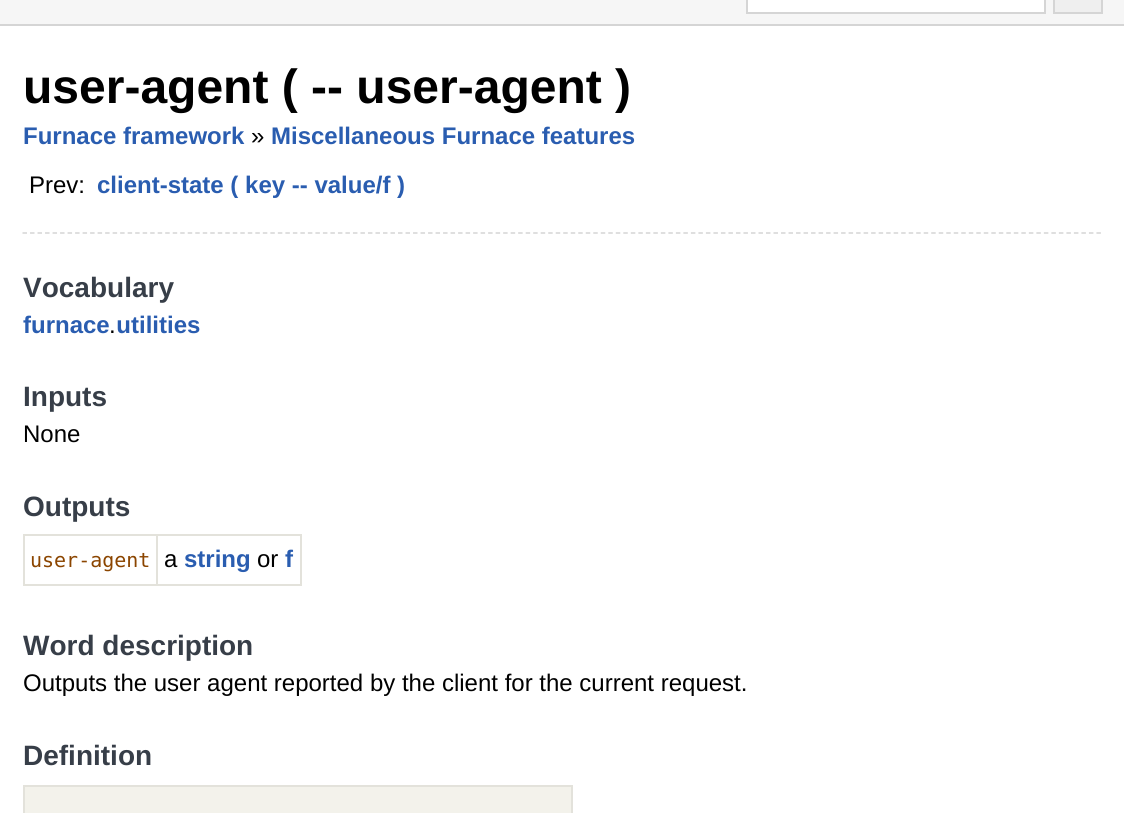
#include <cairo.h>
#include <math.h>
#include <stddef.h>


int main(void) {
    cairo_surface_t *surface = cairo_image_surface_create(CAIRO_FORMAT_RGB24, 1124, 813);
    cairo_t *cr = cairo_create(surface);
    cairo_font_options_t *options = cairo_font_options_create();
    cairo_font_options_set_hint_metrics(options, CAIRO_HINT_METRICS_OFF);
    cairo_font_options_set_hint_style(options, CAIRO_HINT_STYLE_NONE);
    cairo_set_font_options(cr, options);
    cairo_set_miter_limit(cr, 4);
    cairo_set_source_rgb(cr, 1, 1, 1);
    cairo_paint(cr);
    cairo_set_source_rgb(cr, 0.961, 0.961, 0.961);
    cairo_rectangle(cr, 0, 0, 1124, 24);
    cairo_fill(cr);
    cairo_set_source_rgb(cr, 0.835, 0.835, 0.835);
    cairo_rectangle(cr, 0, 24, 1124, 2);
    cairo_fill(cr);
    cairo_set_source_rgb(cr, 1, 1, 1);
    cairo_rectangle(cr, 747, -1, 298, 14);
    cairo_fill_preserve(cr);
    cairo_set_source_rgb(cr, 0.835, 0.835, 0.835);
    cairo_stroke(cr);
    cairo_set_source_rgb(cr, 0.937, 0.937, 0.937);
    cairo_rectangle(cr, 1054, -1, 48, 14);
    cairo_fill_preserve(cr);
    cairo_set_source_rgb(cr, 0.835, 0.835, 0.835);
    cairo_stroke(cr);
    cairo_new_path(cr);
    cairo_move_to(cr, 22.5, 233);
    cairo_line_to(cr, 1102.5, 233);
    cairo_set_line_width(cr, 1.5);
    cairo_set_dash(cr, (double[]){4.5, 3.01}, 2, 0);
    cairo_stroke(cr);
    cairo_select_font_face(cr, "Liberation Sans", CAIRO_FONT_SLANT_NORMAL, CAIRO_FONT_WEIGHT_BOLD);
    cairo_set_font_size(cr, 48);
    cairo_set_source_rgb(cr, 0, 0, 0);
    cairo_move_to(cr, 23, 103);
    cairo_show_text(cr, "user-agent ( -- user-agent )");
    cairo_set_font_size(cr, 24);
    cairo_set_source_rgb(cr, 0.165, 0.365, 0.69);
    cairo_move_to(cr, 23, 144);
    cairo_show_text(cr, "Furnace framework");
    cairo_select_font_face(cr, "Liberation Sans", CAIRO_FONT_SLANT_NORMAL, CAIRO_FONT_WEIGHT_NORMAL);
    cairo_set_source_rgb(cr, 0, 0, 0);
    cairo_move_to(cr, 251, 144);
    cairo_show_text(cr, "»");
    cairo_select_font_face(cr, "Liberation Sans", CAIRO_FONT_SLANT_NORMAL, CAIRO_FONT_WEIGHT_BOLD);
    cairo_set_source_rgb(cr, 0.165, 0.365, 0.69);
    cairo_move_to(cr, 271, 144);
    cairo_show_text(cr, "Miscellaneous Furnace features");
    cairo_select_font_face(cr, "Liberation Sans", CAIRO_FONT_SLANT_NORMAL, CAIRO_FONT_WEIGHT_NORMAL);
    cairo_set_source_rgb(cr, 0, 0, 0);
    cairo_move_to(cr, 29, 193);
    cairo_show_text(cr, "Prev:");
    cairo_select_font_face(cr, "Liberation Sans", CAIRO_FONT_SLANT_NORMAL, CAIRO_FONT_WEIGHT_BOLD);
    cairo_set_source_rgb(cr, 0.165, 0.365, 0.69);
    cairo_move_to(cr, 97, 193);
    cairo_show_text(cr, "client-state ( key -- value/f )");
    cairo_set_font_size(cr, 28);
    cairo_set_source_rgb(cr, 0.216, 0.243, 0.282);
    cairo_move_to(cr, 23, 297);
    cairo_show_text(cr, "Vocabulary");
    cairo_set_font_size(cr, 24);
    cairo_set_source_rgb(cr, 0.165, 0.365, 0.69);
    cairo_move_to(cr, 23, 333);
    cairo_show_text(cr, "furnace utilities");
    cairo_select_font_face(cr, "Liberation Sans", CAIRO_FONT_SLANT_NORMAL, CAIRO_FONT_WEIGHT_NORMAL);
    cairo_set_source_rgb(cr, 0, 0, 0);
    cairo_move_to(cr, 109, 333);
    cairo_show_text(cr, ".");
    cairo_select_font_face(cr, "Liberation Sans", CAIRO_FONT_SLANT_NORMAL, CAIRO_FONT_WEIGHT_BOLD);
    cairo_set_font_size(cr, 28);
    cairo_set_source_rgb(cr, 0.216, 0.243, 0.282);
    cairo_move_to(cr, 23, 406);
    cairo_show_text(cr, "Inputs");
    cairo_select_font_face(cr, "Liberation Sans", CAIRO_FONT_SLANT_NORMAL, CAIRO_FONT_WEIGHT_NORMAL);
    cairo_set_font_size(cr, 24);
    cairo_set_source_rgb(cr, 0, 0, 0);
    cairo_move_to(cr, 23, 442);
    cairo_show_text(cr, "None");
    cairo_select_font_face(cr, "Liberation Sans", CAIRO_FONT_SLANT_NORMAL, CAIRO_FONT_WEIGHT_BOLD);
    cairo_set_font_size(cr, 28);
    cairo_set_source_rgb(cr, 0.216, 0.243, 0.282);
    cairo_move_to(cr, 23, 516);
    cairo_show_text(cr, "Outputs");
    cairo_set_source_rgb(cr, 0.89, 0.886, 0.859);
    cairo_rectangle(cr, 156, 534, 146, 2);
    cairo_fill(cr);
    cairo_rectangle(cr, 300, 534, 2, 51);
    cairo_fill(cr);
    cairo_rectangle(cr, 156, 584, 146, 2);
    cairo_fill(cr);
    cairo_rectangle(cr, 156, 534, 2, 51);
    cairo_fill(cr);
    cairo_rectangle(cr, 23, 534, 135, 2);
    cairo_fill(cr);
    cairo_rectangle(cr, 23, 584, 135, 2);
    cairo_fill(cr);
    cairo_rectangle(cr, 23, 534, 2, 51);
    cairo_fill(cr);
    cairo_select_font_face(cr, "DejaVu Sans Mono", CAIRO_FONT_SLANT_NORMAL, CAIRO_FONT_WEIGHT_NORMAL);
    cairo_set_font_size(cr, 20);
    cairo_set_source_rgb(cr, 0.545, 0.271, 0);
    cairo_move_to(cr, 30, 567);
    cairo_show_text(cr, "user-agent");
    cairo_select_font_face(cr, "Liberation Sans", CAIRO_FONT_SLANT_NORMAL, CAIRO_FONT_WEIGHT_NORMAL);
    cairo_set_font_size(cr, 24);
    cairo_set_source_rgb(cr, 0, 0, 0);
    cairo_move_to(cr, 164, 567);
    cairo_show_text(cr, "a");
    cairo_select_font_face(cr, "Liberation Sans", CAIRO_FONT_SLANT_NORMAL, CAIRO_FONT_WEIGHT_BOLD);
    cairo_set_source_rgb(cr, 0.165, 0.365, 0.69);
    cairo_move_to(cr, 184, 567);
    cairo_show_text(cr, "string");
    cairo_select_font_face(cr, "Liberation Sans", CAIRO_FONT_SLANT_NORMAL, CAIRO_FONT_WEIGHT_NORMAL);
    cairo_set_source_rgb(cr, 0, 0, 0);
    cairo_move_to(cr, 257, 567);
    cairo_show_text(cr, "or");
    cairo_select_font_face(cr, "Liberation Sans", CAIRO_FONT_SLANT_NORMAL, CAIRO_FONT_WEIGHT_BOLD);
    cairo_set_source_rgb(cr, 0.165, 0.365, 0.69);
    cairo_move_to(cr, 285, 567);
    cairo_show_text(cr, "f");
    cairo_set_font_size(cr, 28);
    cairo_set_source_rgb(cr, 0.216, 0.243, 0.282);
    cairo_move_to(cr, 23, 655);
    cairo_show_text(cr, "Word description");
    cairo_select_font_face(cr, "Liberation Sans", CAIRO_FONT_SLANT_NORMAL, CAIRO_FONT_WEIGHT_NORMAL);
    cairo_set_font_size(cr, 24);
    cairo_set_source_rgb(cr, 0, 0, 0);
    cairo_move_to(cr, 23, 691);
    cairo_show_text(cr, "Outputs the user agent reported by the client for the current request.");
    cairo_select_font_face(cr, "Liberation Sans", CAIRO_FONT_SLANT_NORMAL, CAIRO_FONT_WEIGHT_BOLD);
    cairo_set_font_size(cr, 28);
    cairo_set_source_rgb(cr, 0.216, 0.243, 0.282);
    cairo_move_to(cr, 23, 765);
    cairo_show_text(cr, "Definition");
    cairo_set_source_rgb(cr, 0.953, 0.949, 0.918);
    cairo_rectangle(cr, 24, 786, 548, 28);
    cairo_fill_preserve(cr);
    cairo_set_source_rgb(cr, 0.89, 0.886, 0.859);
    cairo_set_line_width(cr, 2);
    cairo_set_dash(cr, NULL, 0, 0);
    cairo_stroke(cr);
    cairo_surface_write_to_png(surface, "page.png");
    cairo_font_options_destroy(options);
    cairo_destroy(cr);
    cairo_surface_destroy(surface);
    return 0;
}
